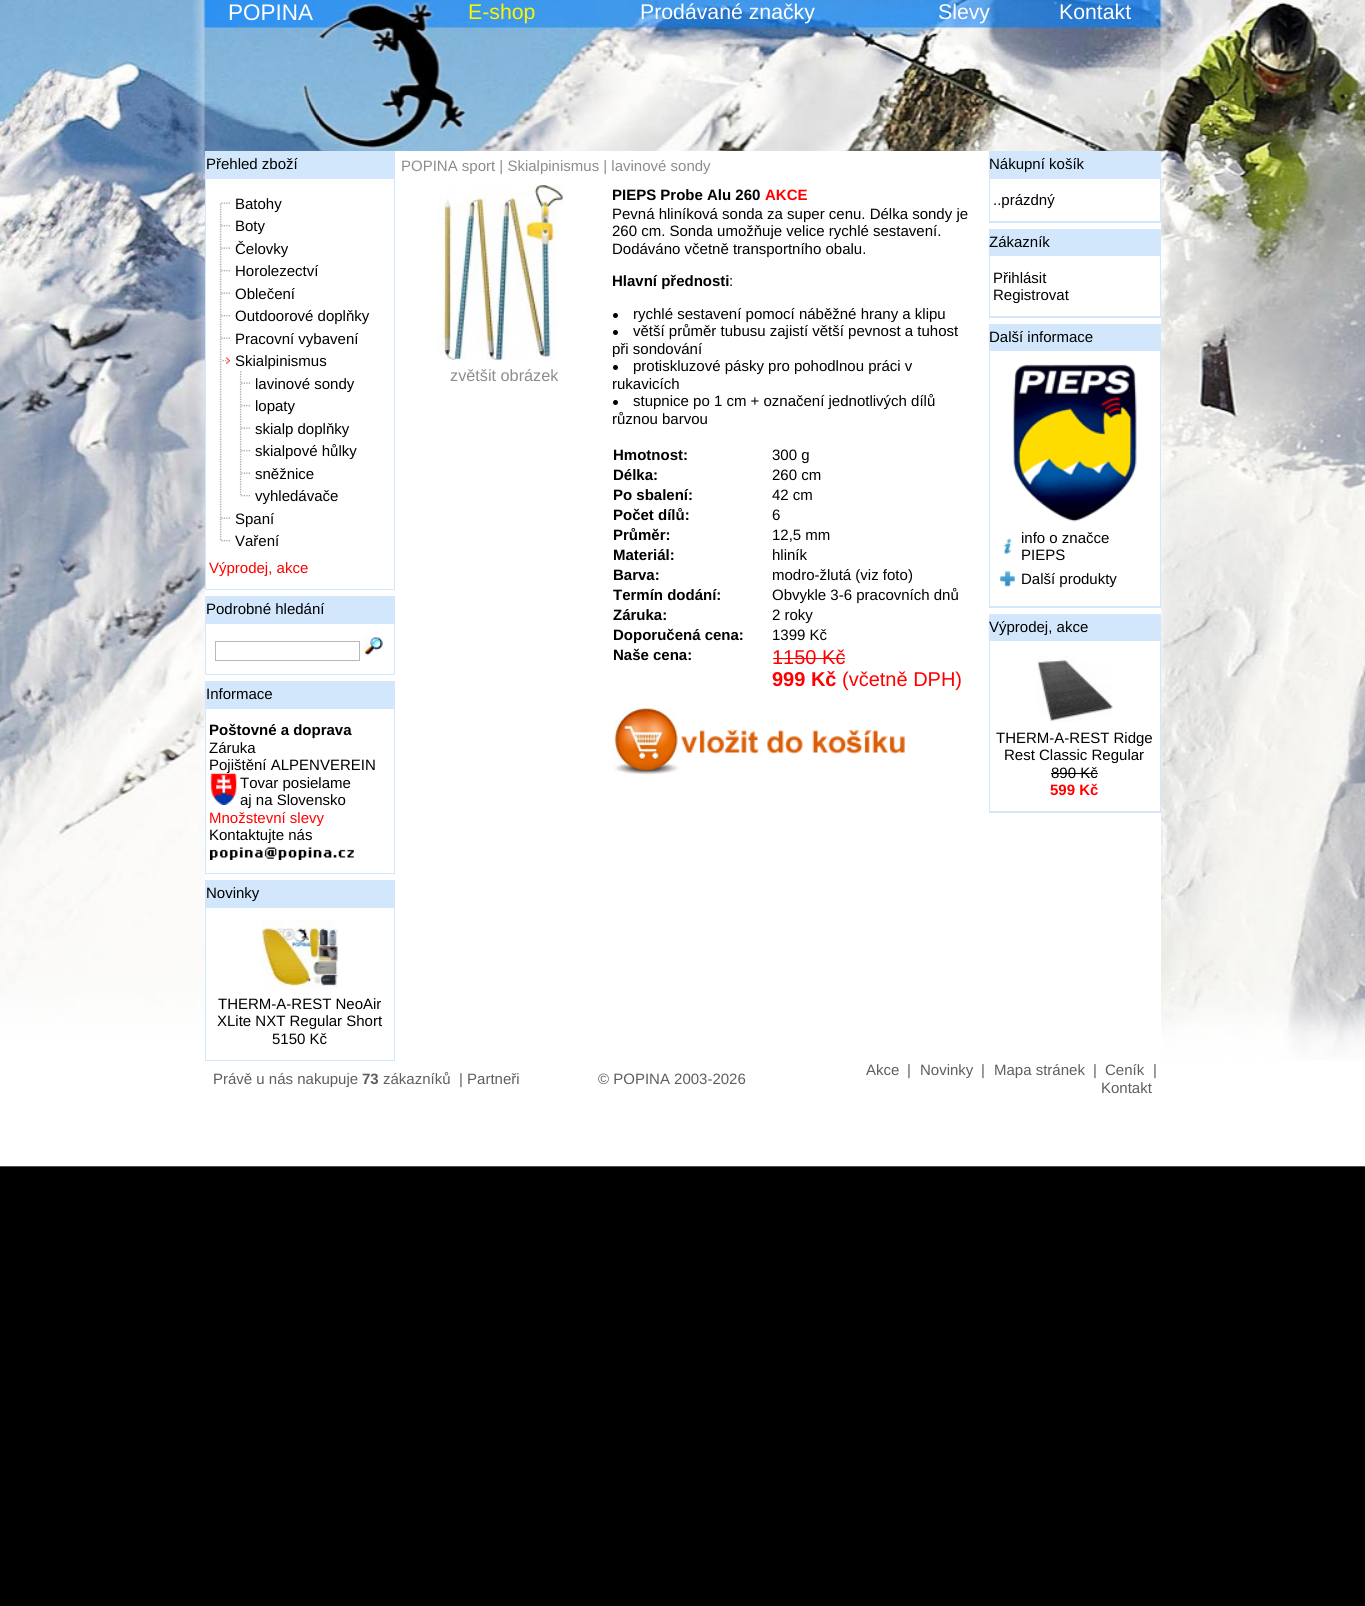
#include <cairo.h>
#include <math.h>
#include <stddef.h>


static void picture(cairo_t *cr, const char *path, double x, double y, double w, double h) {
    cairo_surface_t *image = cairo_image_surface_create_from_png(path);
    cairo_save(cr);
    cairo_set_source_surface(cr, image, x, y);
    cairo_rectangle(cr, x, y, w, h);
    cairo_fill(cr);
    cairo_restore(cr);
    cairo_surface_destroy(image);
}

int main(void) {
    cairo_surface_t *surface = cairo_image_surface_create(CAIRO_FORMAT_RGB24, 1365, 1606);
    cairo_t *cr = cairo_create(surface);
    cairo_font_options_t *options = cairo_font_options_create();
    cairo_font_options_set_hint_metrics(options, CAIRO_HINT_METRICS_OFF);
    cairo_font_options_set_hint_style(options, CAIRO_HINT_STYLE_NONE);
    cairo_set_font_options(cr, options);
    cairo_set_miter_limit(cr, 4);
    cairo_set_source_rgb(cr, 0, 0, 0);
    cairo_paint(cr);
    picture(cr, "img1.png", 0, 0, 1365, 1167);
    cairo_select_font_face(cr, "Liberation Sans", CAIRO_FONT_SLANT_NORMAL, CAIRO_FONT_WEIGHT_NORMAL);
    cairo_set_font_size(cr, 22.5);
    cairo_set_source_rgb(cr, 1, 1, 1);
    cairo_move_to(cr, 228, 20);
    cairo_show_text(cr, "POPINA");
    cairo_set_font_size(cr, 21.25);
    cairo_set_source_rgb(cr, 0.996, 0.961, 0);
    cairo_move_to(cr, 468, 19);
    cairo_show_text(cr, "E-shop");
    cairo_set_source_rgb(cr, 1, 1, 1);
    cairo_move_to(cr, 640, 19);
    cairo_show_text(cr, "Prodávané značky");
    cairo_move_to(cr, 938, 19);
    cairo_show_text(cr, "Slevy");
    cairo_move_to(cr, 1059, 19);
    cairo_show_text(cr, "Kontakt");
    cairo_rectangle(cr, 205, 151, 956, 909);
    cairo_fill(cr);
    cairo_set_source_rgb(cr, 0.824, 0.906, 0.988);
    cairo_rectangle(cr, 205, 151, 190, 439);
    cairo_fill(cr);
    cairo_set_font_size(cr, 15);
    cairo_set_source_rgb(cr, 0, 0, 0);
    cairo_move_to(cr, 206, 169);
    cairo_show_text(cr, "Přehled zboží");
    cairo_set_source_rgb(cr, 1, 1, 1);
    cairo_rectangle(cr, 206, 179, 188, 410);
    cairo_fill(cr);
    picture(cr, "img2.png", 219, 202, 11, 11);
    cairo_set_source_rgb(cr, 0, 0, 0);
    cairo_move_to(cr, 235, 209);
    cairo_show_text(cr, "Batohy");
    picture(cr, "img3.png", 219, 213, 11, 23);
    cairo_move_to(cr, 235, 231);
    cairo_show_text(cr, "Boty");
    picture(cr, "img4.png", 219, 236, 11, 22);
    cairo_move_to(cr, 235, 254);
    cairo_show_text(cr, "Čelovky");
    picture(cr, "img3.png", 219, 258, 11, 23);
    cairo_move_to(cr, 235, 276);
    cairo_show_text(cr, "Horolezectví");
    picture(cr, "img5.png", 219, 281, 11, 22);
    cairo_move_to(cr, 235, 299);
    cairo_show_text(cr, "Oblečení");
    picture(cr, "img3.png", 219, 303, 11, 23);
    cairo_move_to(cr, 235, 321);
    cairo_show_text(cr, "Outdoorové doplňky");
    picture(cr, "img4.png", 219, 326, 11, 22);
    cairo_move_to(cr, 235, 344);
    cairo_show_text(cr, "Pracovní vybavení");
    picture(cr, "img6.png", 219, 348, 11, 23);
    cairo_move_to(cr, 235, 366);
    cairo_show_text(cr, "Skialpinismus");
    picture(cr, "img7.png", 219, 371, 3, 22);
    picture(cr, "img4.png", 239, 371, 11, 22);
    cairo_move_to(cr, 255, 389);
    cairo_show_text(cr, "lavinové sondy");
    picture(cr, "img8.png", 219, 393, 3, 23);
    picture(cr, "img3.png", 239, 393, 11, 23);
    cairo_move_to(cr, 255, 411);
    cairo_show_text(cr, "lopaty");
    picture(cr, "img7.png", 219, 416, 3, 22);
    picture(cr, "img4.png", 239, 416, 11, 22);
    cairo_move_to(cr, 255, 434);
    cairo_show_text(cr, "skialp doplňky");
    picture(cr, "img8.png", 219, 438, 3, 23);
    picture(cr, "img3.png", 239, 438, 11, 23);
    cairo_move_to(cr, 255, 456);
    cairo_show_text(cr, "skialpové hůlky");
    picture(cr, "img7.png", 219, 461, 3, 22);
    picture(cr, "img4.png", 239, 461, 11, 22);
    cairo_move_to(cr, 255, 479);
    cairo_show_text(cr, "sněžnice");
    picture(cr, "img8.png", 219, 483, 3, 23);
    picture(cr, "img9.png", 239, 483, 11, 14);
    cairo_move_to(cr, 255, 501);
    cairo_show_text(cr, "vyhledávače");
    picture(cr, "img4.png", 219, 506, 11, 22);
    cairo_move_to(cr, 235, 524);
    cairo_show_text(cr, "Spaní");
    picture(cr, "img9.png", 219, 528, 11, 14);
    cairo_move_to(cr, 235, 546);
    cairo_show_text(cr, "Vaření");
    cairo_set_source_rgb(cr, 1, 0, 0);
    cairo_move_to(cr, 209, 573);
    cairo_show_text(cr, "Výprodej, akce");
    cairo_set_source_rgb(cr, 0.824, 0.906, 0.988);
    cairo_rectangle(cr, 205, 596, 190, 79);
    cairo_fill(cr);
    cairo_set_source_rgb(cr, 0, 0, 0);
    cairo_move_to(cr, 206, 614);
    cairo_show_text(cr, "Podrobné hledání");
    cairo_set_source_rgb(cr, 1, 1, 1);
    cairo_rectangle(cr, 206, 624, 188, 50);
    cairo_fill(cr);
    cairo_rectangle(cr, 215.5, 641.5, 144, 19);
    cairo_set_source_rgb(cr, 0.722, 0.722, 0.722);
    cairo_set_line_width(cr, 1);
    cairo_stroke(cr);
    picture(cr, "img10.png", 363, 636, 21, 20);
    cairo_set_source_rgb(cr, 0.824, 0.906, 0.988);
    cairo_rectangle(cr, 205, 681, 190, 193);
    cairo_fill(cr);
    cairo_set_source_rgb(cr, 0, 0, 0);
    cairo_move_to(cr, 206, 699);
    cairo_show_text(cr, "Informace");
    cairo_set_source_rgb(cr, 1, 1, 1);
    cairo_rectangle(cr, 206, 709, 188, 164);
    cairo_fill(cr);
    cairo_select_font_face(cr, "Liberation Sans", CAIRO_FONT_SLANT_NORMAL, CAIRO_FONT_WEIGHT_BOLD);
    cairo_set_source_rgb(cr, 0, 0, 0);
    cairo_move_to(cr, 209, 735);
    cairo_show_text(cr, "Poštovné a doprava");
    cairo_select_font_face(cr, "Liberation Sans", CAIRO_FONT_SLANT_NORMAL, CAIRO_FONT_WEIGHT_NORMAL);
    cairo_move_to(cr, 209, 753);
    cairo_show_text(cr, "Záruka");
    picture(cr, "img11.png", 210, 773, 27, 32);
    cairo_move_to(cr, 209, 770);
    cairo_show_text(cr, "Pojištění ALPENVEREIN");
    cairo_move_to(cr, 240, 788);
    cairo_show_text(cr, "Tovar posielame");
    cairo_move_to(cr, 240, 805);
    cairo_show_text(cr, "aj na Slovensko");
    cairo_set_source_rgb(cr, 1, 0, 0);
    cairo_move_to(cr, 209, 823);
    cairo_show_text(cr, "Množstevní slevy");
    cairo_set_source_rgb(cr, 0, 0, 0);
    cairo_move_to(cr, 209, 840);
    cairo_show_text(cr, "Kontaktujte nás");
    picture(cr, "img12.png", 210, 847, 144, 13);
    cairo_set_source_rgb(cr, 0.824, 0.906, 0.988);
    cairo_rectangle(cr, 205, 880, 190, 181);
    cairo_fill(cr);
    cairo_set_source_rgb(cr, 0, 0, 0);
    cairo_move_to(cr, 206, 898);
    cairo_show_text(cr, "Novinky");
    cairo_set_source_rgb(cr, 1, 1, 1);
    cairo_rectangle(cr, 206, 908, 188, 152);
    cairo_fill(cr);
    picture(cr, "img13.png", 262, 920, 76, 75);
    cairo_set_source_rgb(cr, 0, 0, 0);
    cairo_move_to(cr, 218, 1009);
    cairo_show_text(cr, "THERM-A-REST NeoAir");
    cairo_move_to(cr, 217, 1026);
    cairo_show_text(cr, "XLite NXT Regular Short");
    cairo_move_to(cr, 272, 1044);
    cairo_show_text(cr, "5150 Kč");
    cairo_set_source_rgb(cr, 0.549, 0.549, 0.549);
    cairo_move_to(cr, 401, 171);
    cairo_show_text(cr, "POPINA sport | Skialpinismus | lavinové sondy");
    picture(cr, "img14.png", 437, 185, 128, 175);
    cairo_set_font_size(cr, 16.25);
    cairo_move_to(cr, 450, 381);
    cairo_show_text(cr, "zvětšit obrázek");
    cairo_select_font_face(cr, "Liberation Sans", CAIRO_FONT_SLANT_NORMAL, CAIRO_FONT_WEIGHT_BOLD);
    cairo_set_font_size(cr, 15);
    cairo_set_source_rgb(cr, 0, 0, 0);
    cairo_move_to(cr, 612, 200);
    cairo_show_text(cr, "PIEPS Probe Alu 260");
    cairo_set_source_rgb(cr, 1, 0, 0);
    cairo_move_to(cr, 765, 200);
    cairo_show_text(cr, "AKCE");
    cairo_select_font_face(cr, "Liberation Sans", CAIRO_FONT_SLANT_NORMAL, CAIRO_FONT_WEIGHT_NORMAL);
    cairo_set_source_rgb(cr, 0, 0, 0);
    cairo_move_to(cr, 612, 219);
    cairo_show_text(cr, "Pevná hliníková sonda za super cenu. Délka sondy je");
    cairo_move_to(cr, 612, 236);
    cairo_show_text(cr, "260 cm. Sonda umožňuje velice rychlé sestavení.");
    cairo_move_to(cr, 612, 254);
    cairo_show_text(cr, "Dodáváno včetně transportního obalu.");
    cairo_select_font_face(cr, "Liberation Sans", CAIRO_FONT_SLANT_NORMAL, CAIRO_FONT_WEIGHT_BOLD);
    cairo_move_to(cr, 612, 286);
    cairo_show_text(cr, "Hlavní přednosti");
    cairo_select_font_face(cr, "Liberation Sans", CAIRO_FONT_SLANT_NORMAL, CAIRO_FONT_WEIGHT_NORMAL);
    cairo_move_to(cr, 729, 286);
    cairo_show_text(cr, ":");
    cairo_new_path(cr);
    cairo_arc(cr, 615.5, 315.5, 2.5, 0, 2 * M_PI);
    cairo_fill(cr);
    cairo_move_to(cr, 633, 319);
    cairo_show_text(cr, "rychlé sestavení pomocí náběžné hrany a klipu");
    cairo_new_path(cr);
    cairo_arc(cr, 615.5, 332.5, 2.5, 0, 2 * M_PI);
    cairo_fill(cr);
    cairo_move_to(cr, 633, 336);
    cairo_show_text(cr, "větší průměr tubusu zajistí větší pevnost a tuhost");
    cairo_move_to(cr, 612, 354);
    cairo_show_text(cr, "při sondování");
    cairo_new_path(cr);
    cairo_arc(cr, 615.5, 367.5, 2.5, 0, 2 * M_PI);
    cairo_fill(cr);
    cairo_move_to(cr, 633, 371);
    cairo_show_text(cr, "protiskluzové pásky pro pohodlnou práci v");
    cairo_move_to(cr, 612, 389);
    cairo_show_text(cr, "rukavicích");
    cairo_new_path(cr);
    cairo_arc(cr, 615.5, 402.5, 2.5, 0, 2 * M_PI);
    cairo_fill(cr);
    cairo_move_to(cr, 633, 406);
    cairo_show_text(cr, "stupnice po 1 cm + označení jednotlivých dílů");
    cairo_move_to(cr, 612, 424);
    cairo_show_text(cr, "různou barvou");
    cairo_select_font_face(cr, "Liberation Sans", CAIRO_FONT_SLANT_NORMAL, CAIRO_FONT_WEIGHT_BOLD);
    cairo_move_to(cr, 613, 460);
    cairo_show_text(cr, "Hmotnost:");
    cairo_select_font_face(cr, "Liberation Sans", CAIRO_FONT_SLANT_NORMAL, CAIRO_FONT_WEIGHT_NORMAL);
    cairo_move_to(cr, 772, 460);
    cairo_show_text(cr, "300 g");
    cairo_select_font_face(cr, "Liberation Sans", CAIRO_FONT_SLANT_NORMAL, CAIRO_FONT_WEIGHT_BOLD);
    cairo_move_to(cr, 613, 480);
    cairo_show_text(cr, "Délka:");
    cairo_select_font_face(cr, "Liberation Sans", CAIRO_FONT_SLANT_NORMAL, CAIRO_FONT_WEIGHT_NORMAL);
    cairo_move_to(cr, 772, 480);
    cairo_show_text(cr, "260 cm");
    cairo_select_font_face(cr, "Liberation Sans", CAIRO_FONT_SLANT_NORMAL, CAIRO_FONT_WEIGHT_BOLD);
    cairo_move_to(cr, 613, 500);
    cairo_show_text(cr, "Po sbalení:");
    cairo_select_font_face(cr, "Liberation Sans", CAIRO_FONT_SLANT_NORMAL, CAIRO_FONT_WEIGHT_NORMAL);
    cairo_move_to(cr, 772, 500);
    cairo_show_text(cr, "42 cm");
    cairo_select_font_face(cr, "Liberation Sans", CAIRO_FONT_SLANT_NORMAL, CAIRO_FONT_WEIGHT_BOLD);
    cairo_move_to(cr, 613, 520);
    cairo_show_text(cr, "Počet dílů:");
    cairo_select_font_face(cr, "Liberation Sans", CAIRO_FONT_SLANT_NORMAL, CAIRO_FONT_WEIGHT_NORMAL);
    cairo_move_to(cr, 772, 520);
    cairo_show_text(cr, "6");
    cairo_select_font_face(cr, "Liberation Sans", CAIRO_FONT_SLANT_NORMAL, CAIRO_FONT_WEIGHT_BOLD);
    cairo_move_to(cr, 613, 540);
    cairo_show_text(cr, "Průměr:");
    cairo_select_font_face(cr, "Liberation Sans", CAIRO_FONT_SLANT_NORMAL, CAIRO_FONT_WEIGHT_NORMAL);
    cairo_move_to(cr, 772, 540);
    cairo_show_text(cr, "12,5 mm");
    cairo_select_font_face(cr, "Liberation Sans", CAIRO_FONT_SLANT_NORMAL, CAIRO_FONT_WEIGHT_BOLD);
    cairo_move_to(cr, 613, 560);
    cairo_show_text(cr, "Materiál:");
    cairo_select_font_face(cr, "Liberation Sans", CAIRO_FONT_SLANT_NORMAL, CAIRO_FONT_WEIGHT_NORMAL);
    cairo_move_to(cr, 772, 560);
    cairo_show_text(cr, "hliník");
    cairo_select_font_face(cr, "Liberation Sans", CAIRO_FONT_SLANT_NORMAL, CAIRO_FONT_WEIGHT_BOLD);
    cairo_move_to(cr, 613, 580);
    cairo_show_text(cr, "Barva:");
    cairo_select_font_face(cr, "Liberation Sans", CAIRO_FONT_SLANT_NORMAL, CAIRO_FONT_WEIGHT_NORMAL);
    cairo_move_to(cr, 772, 580);
    cairo_show_text(cr, "modro-žlutá (viz foto)");
    cairo_select_font_face(cr, "Liberation Sans", CAIRO_FONT_SLANT_NORMAL, CAIRO_FONT_WEIGHT_BOLD);
    cairo_move_to(cr, 613, 600);
    cairo_show_text(cr, "Termín dodání:");
    cairo_select_font_face(cr, "Liberation Sans", CAIRO_FONT_SLANT_NORMAL, CAIRO_FONT_WEIGHT_NORMAL);
    cairo_move_to(cr, 772, 600);
    cairo_show_text(cr, "Obvykle 3-6 pracovních dnů");
    cairo_select_font_face(cr, "Liberation Sans", CAIRO_FONT_SLANT_NORMAL, CAIRO_FONT_WEIGHT_BOLD);
    cairo_move_to(cr, 613, 620);
    cairo_show_text(cr, "Záruka:");
    cairo_select_font_face(cr, "Liberation Sans", CAIRO_FONT_SLANT_NORMAL, CAIRO_FONT_WEIGHT_NORMAL);
    cairo_move_to(cr, 772, 620);
    cairo_show_text(cr, "2 roky");
    cairo_select_font_face(cr, "Liberation Sans", CAIRO_FONT_SLANT_NORMAL, CAIRO_FONT_WEIGHT_BOLD);
    cairo_move_to(cr, 613, 640);
    cairo_show_text(cr, "Doporučená cena:");
    cairo_select_font_face(cr, "Liberation Sans", CAIRO_FONT_SLANT_NORMAL, CAIRO_FONT_WEIGHT_NORMAL);
    cairo_move_to(cr, 772, 640);
    cairo_show_text(cr, "1399 Kč");
    cairo_select_font_face(cr, "Liberation Sans", CAIRO_FONT_SLANT_NORMAL, CAIRO_FONT_WEIGHT_BOLD);
    cairo_move_to(cr, 613, 660);
    cairo_show_text(cr, "Naše cena:");
    cairo_select_font_face(cr, "Liberation Sans", CAIRO_FONT_SLANT_NORMAL, CAIRO_FONT_WEIGHT_NORMAL);
    cairo_set_font_size(cr, 20);
    cairo_set_source_rgb(cr, 1, 0, 0);
    cairo_move_to(cr, 772, 664);
    cairo_show_text(cr, "1150 Kč");
    cairo_rectangle(cr, 773, 658, 72, 1);
    cairo_fill(cr);
    cairo_select_font_face(cr, "Liberation Sans", CAIRO_FONT_SLANT_NORMAL, CAIRO_FONT_WEIGHT_BOLD);
    cairo_move_to(cr, 772, 686);
    cairo_show_text(cr, "999 Kč");
    cairo_select_font_face(cr, "Liberation Sans", CAIRO_FONT_SLANT_NORMAL, CAIRO_FONT_WEIGHT_NORMAL);
    cairo_move_to(cr, 842, 686);
    cairo_show_text(cr, "(včetně DPH)");
    picture(cr, "img15.png", 613, 707, 292, 68);
    cairo_set_source_rgb(cr, 0.824, 0.906, 0.988);
    cairo_rectangle(cr, 989, 151, 172, 72);
    cairo_fill(cr);
    picture(cr, "img16.png", 988, 156, 1, 18);
    picture(cr, "img17.png", 1161, 156, 1, 18);
    cairo_set_font_size(cr, 15);
    cairo_set_source_rgb(cr, 0, 0, 0);
    cairo_move_to(cr, 989, 169);
    cairo_show_text(cr, "Nákupní košík");
    cairo_set_source_rgb(cr, 1, 1, 1);
    cairo_rectangle(cr, 990, 179, 170, 42);
    cairo_fill(cr);
    cairo_set_source_rgb(cr, 0, 0, 0);
    cairo_move_to(cr, 993, 205);
    cairo_show_text(cr, "..prázdný");
    cairo_set_source_rgb(cr, 0.824, 0.906, 0.988);
    cairo_rectangle(cr, 989, 229, 172, 89);
    cairo_fill(cr);
    cairo_set_source_rgb(cr, 0.961, 0.976, 1);
    cairo_rectangle(cr, 988, 234, 1, 17);
    cairo_fill(cr);
    cairo_set_source_rgb(cr, 0, 0, 0);
    cairo_move_to(cr, 989, 247);
    cairo_show_text(cr, "Zákazník");
    cairo_set_source_rgb(cr, 1, 1, 1);
    cairo_rectangle(cr, 990, 256, 170, 60);
    cairo_fill(cr);
    cairo_set_source_rgb(cr, 0, 0, 0);
    cairo_move_to(cr, 993, 283);
    cairo_show_text(cr, "Přihlásit");
    cairo_move_to(cr, 993, 300);
    cairo_show_text(cr, "Registrovat");
    cairo_set_source_rgb(cr, 0.824, 0.906, 0.988);
    cairo_rectangle(cr, 989, 324, 172, 284);
    cairo_fill(cr);
    cairo_set_source_rgb(cr, 0.961, 0.976, 1);
    cairo_rectangle(cr, 988, 329, 1, 17);
    cairo_fill(cr);
    cairo_set_source_rgb(cr, 0, 0, 0);
    cairo_move_to(cr, 989, 342);
    cairo_show_text(cr, "Další informace");
    cairo_set_source_rgb(cr, 1, 1, 1);
    cairo_rectangle(cr, 990, 351, 170, 255);
    cairo_fill(cr);
    picture(cr, "img18.png", 1012, 364, 125, 158);
    picture(cr, "img19.png", 1003, 538, 9, 16);
    cairo_set_source_rgb(cr, 0, 0, 0);
    cairo_move_to(cr, 1021, 543);
    cairo_show_text(cr, "info o značce");
    cairo_move_to(cr, 1021, 560);
    cairo_show_text(cr, "PIEPS");
    picture(cr, "img20.png", 1000, 571, 15, 16);
    cairo_move_to(cr, 1021, 584);
    cairo_show_text(cr, "Další produkty");
    cairo_set_source_rgb(cr, 0.824, 0.906, 0.988);
    cairo_rectangle(cr, 989, 614, 172, 199);
    cairo_fill(cr);
    cairo_set_source_rgb(cr, 0.961, 0.976, 1);
    cairo_rectangle(cr, 988, 619, 1, 17);
    cairo_fill(cr);
    cairo_set_source_rgb(cr, 0, 0, 0);
    cairo_move_to(cr, 989, 632);
    cairo_show_text(cr, "Výprodej, akce");
    cairo_set_source_rgb(cr, 1, 1, 1);
    cairo_rectangle(cr, 990, 641, 170, 170);
    cairo_fill(cr);
    picture(cr, "img21.png", 1037, 655, 76, 67);
    cairo_set_source_rgb(cr, 0, 0, 0);
    cairo_move_to(cr, 996, 743);
    cairo_show_text(cr, "THERM-A-REST Ridge");
    cairo_move_to(cr, 1004, 760);
    cairo_show_text(cr, "Rest Classic Regular");
    cairo_move_to(cr, 1051, 778);
    cairo_show_text(cr, "890 Kč");
    cairo_rectangle(cr, 1051, 773, 47, 1);
    cairo_fill(cr);
    cairo_select_font_face(cr, "Liberation Sans", CAIRO_FONT_SLANT_NORMAL, CAIRO_FONT_WEIGHT_BOLD);
    cairo_set_source_rgb(cr, 1, 0, 0);
    cairo_move_to(cr, 1050, 795);
    cairo_show_text(cr, "599 Kč");
    cairo_select_font_face(cr, "Liberation Sans", CAIRO_FONT_SLANT_NORMAL, CAIRO_FONT_WEIGHT_NORMAL);
    cairo_set_source_rgb(cr, 0.369, 0.369, 0.369);
    cairo_move_to(cr, 213, 1084);
    cairo_show_text(cr, "Právě u nás nakupuje");
    cairo_select_font_face(cr, "Liberation Sans", CAIRO_FONT_SLANT_NORMAL, CAIRO_FONT_WEIGHT_BOLD);
    cairo_move_to(cr, 362, 1084);
    cairo_show_text(cr, "73");
    cairo_select_font_face(cr, "Liberation Sans", CAIRO_FONT_SLANT_NORMAL, CAIRO_FONT_WEIGHT_NORMAL);
    cairo_move_to(cr, 383, 1084);
    cairo_show_text(cr, "zákazníků");
    cairo_move_to(cr, 459, 1084);
    cairo_show_text(cr, "| Partneři");
    cairo_move_to(cr, 598, 1084);
    cairo_show_text(cr, "© POPINA 2003-2026");
    cairo_move_to(cr, 866, 1075);
    cairo_show_text(cr, "Akce");
    cairo_move_to(cr, 907, 1075);
    cairo_show_text(cr, "|");
    cairo_move_to(cr, 920, 1075);
    cairo_show_text(cr, "Novinky");
    cairo_move_to(cr, 981, 1075);
    cairo_show_text(cr, "|");
    cairo_move_to(cr, 994, 1075);
    cairo_show_text(cr, "Mapa stránek");
    cairo_move_to(cr, 1093, 1075);
    cairo_show_text(cr, "|");
    cairo_move_to(cr, 1105, 1075);
    cairo_show_text(cr, "Ceník");
    cairo_move_to(cr, 1153, 1075);
    cairo_show_text(cr, "|");
    cairo_move_to(cr, 1101, 1093);
    cairo_show_text(cr, "Kontakt");
    cairo_surface_write_to_png(surface, "page.png");
    cairo_font_options_destroy(options);
    cairo_destroy(cr);
    cairo_surface_destroy(surface);
    return 0;
}
